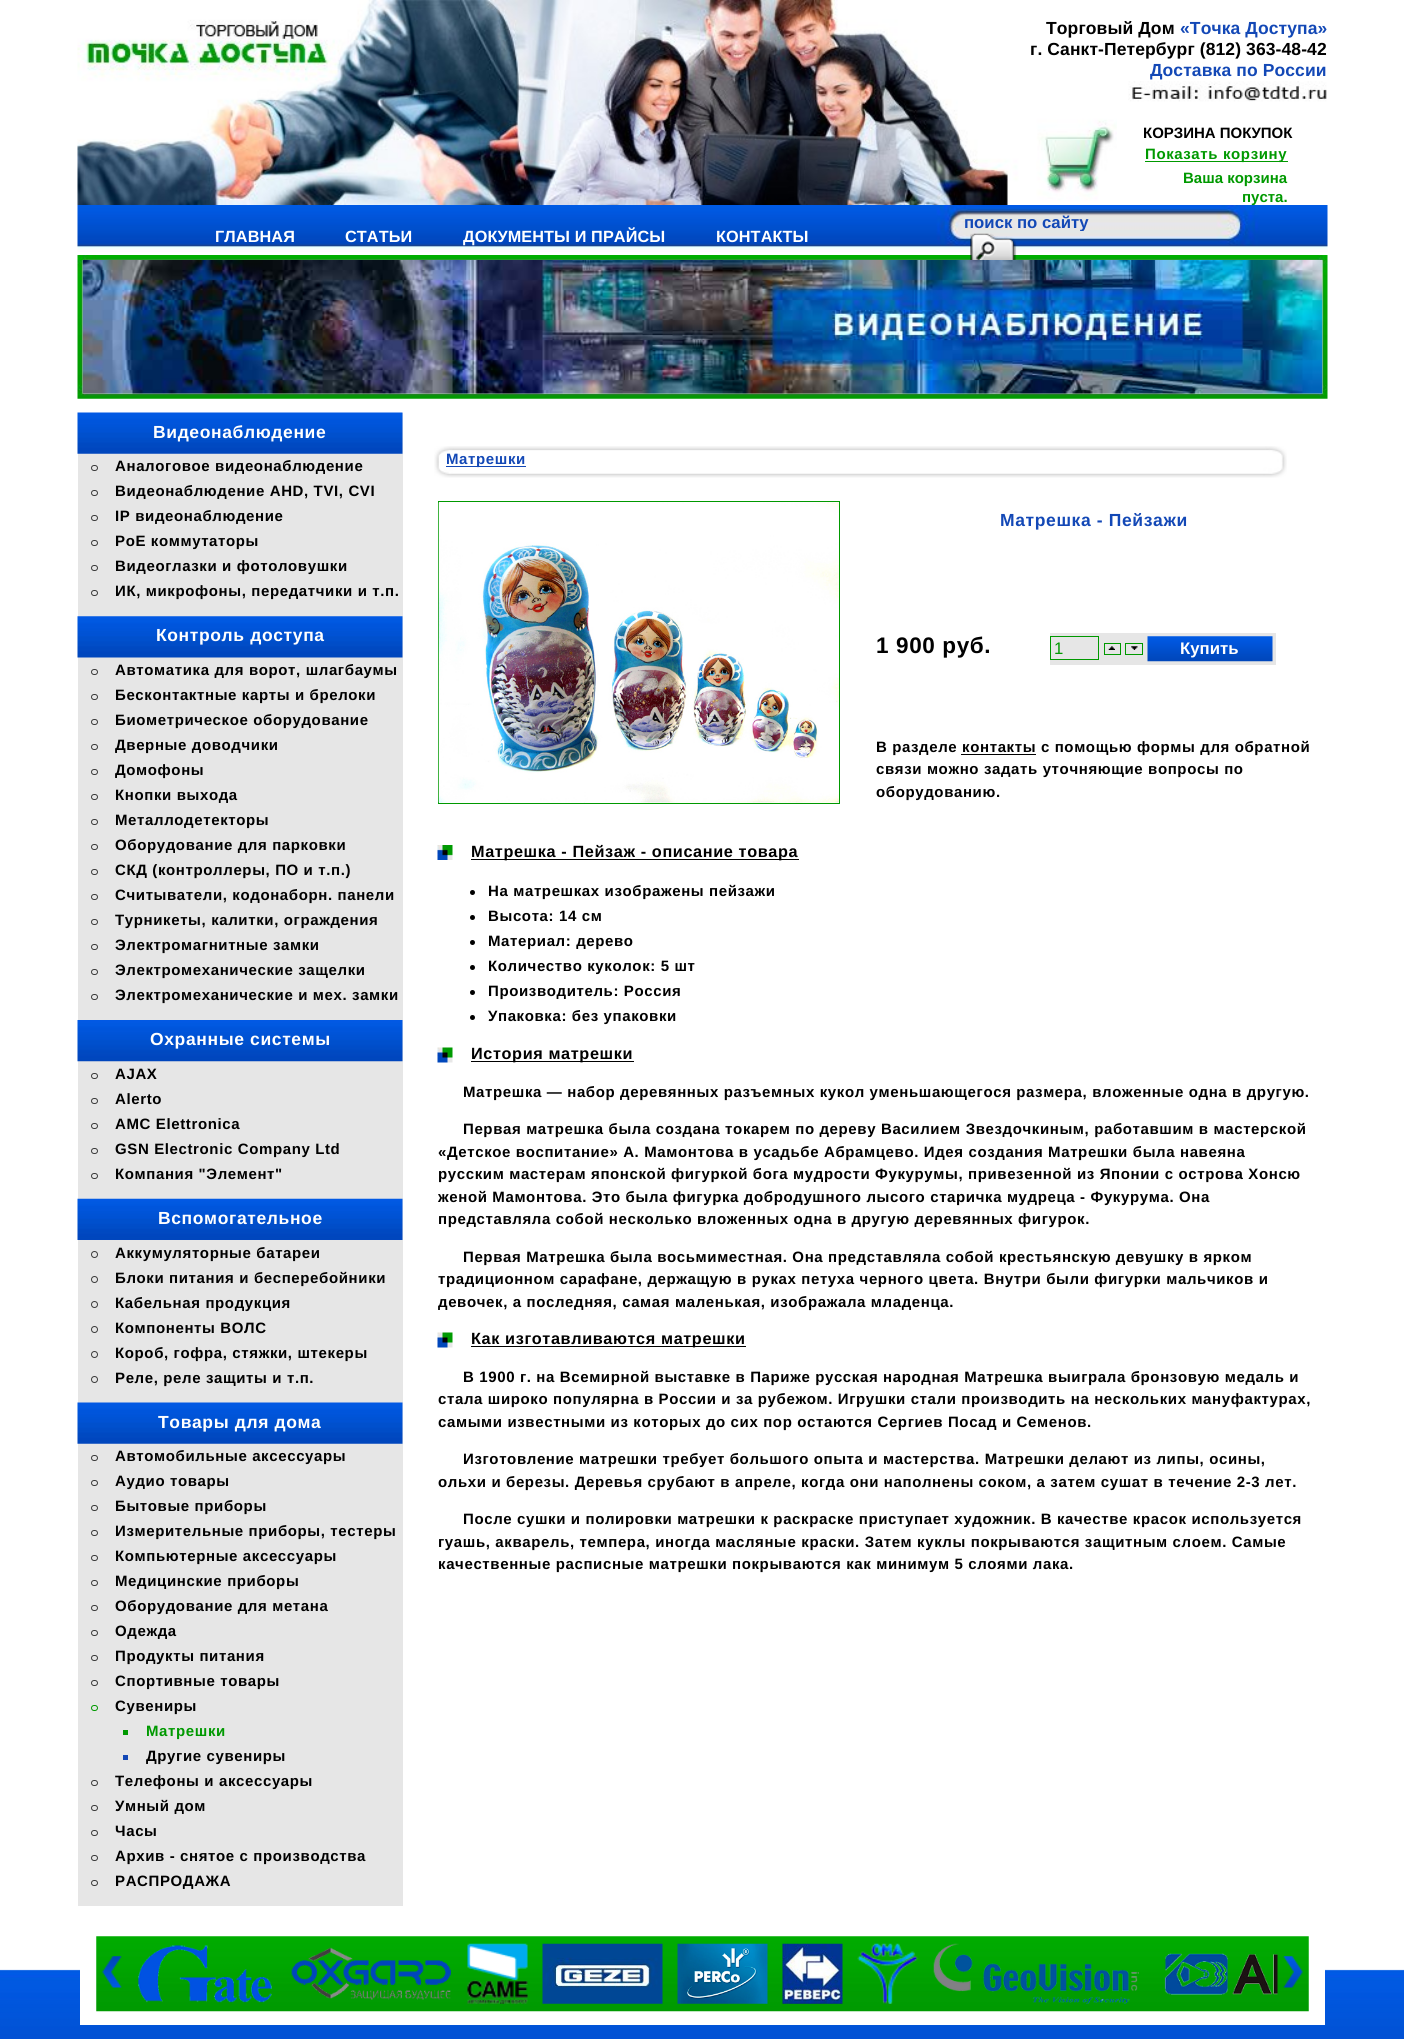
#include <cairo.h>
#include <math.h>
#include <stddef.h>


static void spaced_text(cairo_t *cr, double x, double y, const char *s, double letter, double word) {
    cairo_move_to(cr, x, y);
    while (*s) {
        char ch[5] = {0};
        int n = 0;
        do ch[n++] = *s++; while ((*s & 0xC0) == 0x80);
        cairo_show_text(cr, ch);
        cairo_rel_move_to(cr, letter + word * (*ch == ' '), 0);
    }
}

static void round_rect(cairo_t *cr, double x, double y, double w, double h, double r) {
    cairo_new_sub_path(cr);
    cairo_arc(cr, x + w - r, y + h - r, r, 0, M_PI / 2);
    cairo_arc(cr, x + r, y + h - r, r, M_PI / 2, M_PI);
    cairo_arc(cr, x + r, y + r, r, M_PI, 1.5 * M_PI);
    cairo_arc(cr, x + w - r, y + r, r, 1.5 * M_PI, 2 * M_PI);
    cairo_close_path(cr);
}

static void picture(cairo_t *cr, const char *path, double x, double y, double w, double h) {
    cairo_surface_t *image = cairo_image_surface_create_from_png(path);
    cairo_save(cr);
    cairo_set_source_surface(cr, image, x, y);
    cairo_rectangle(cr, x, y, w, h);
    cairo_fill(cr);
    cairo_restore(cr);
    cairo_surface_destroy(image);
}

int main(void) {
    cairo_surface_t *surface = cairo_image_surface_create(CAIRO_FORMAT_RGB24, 1404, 2039);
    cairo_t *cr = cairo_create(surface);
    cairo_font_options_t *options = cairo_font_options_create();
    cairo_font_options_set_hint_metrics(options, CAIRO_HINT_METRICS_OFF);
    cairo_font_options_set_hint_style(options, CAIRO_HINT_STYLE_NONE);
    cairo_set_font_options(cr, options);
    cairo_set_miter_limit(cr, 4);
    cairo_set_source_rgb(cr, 1, 1, 1);
    cairo_paint(cr);
    picture(cr, "img1.png", 77, 0, 1040, 205);
    cairo_select_font_face(cr, "Liberation Sans", CAIRO_FONT_SLANT_NORMAL, CAIRO_FONT_WEIGHT_BOLD);
    cairo_set_font_size(cr, 17.5);
    cairo_set_source_rgb(cr, 0, 0, 0);
    spaced_text(cr, 1046, 34, "Торговый Дом", 0.1, 0);
    cairo_set_source_rgb(cr, 0.075, 0.282, 0.714);
    spaced_text(cr, 1180, 34, "«Точка Доступа»", 0.1, 0);
    cairo_set_source_rgb(cr, 0, 0, 0);
    spaced_text(cr, 1030, 55, "г. Санкт-Петербург (812) 363-48-42", 0.1, 0);
    cairo_set_source_rgb(cr, 0.075, 0.282, 0.714);
    spaced_text(cr, 1150, 76, "Доставка по России", 0.1, 0);
    picture(cr, "img2.png", 1128, 81, 199, 21);
    cairo_set_font_size(cr, 15);
    cairo_set_source_rgb(cr, 0, 0, 0);
    cairo_move_to(cr, 1143, 138);
    cairo_show_text(cr, "КОРЗИНА ПОКУПОК");
    cairo_set_source_rgb(cr, 0, 0.6, 0);
    cairo_rectangle(cr, 1145, 161, 143, 1);
    cairo_fill(cr);
    spaced_text(cr, 1145, 159, "Показать корзину", 0.62, 0);
    cairo_move_to(cr, 1183, 183);
    cairo_show_text(cr, "Ваша корзина");
    picture(cr, "img3.png", 77, 205, 1251, 47);
    cairo_move_to(cr, 1242, 202);
    cairo_show_text(cr, "пуста.");
    cairo_save(cr);
    cairo_rectangle(cr, 964, 213, 295, 18);
    cairo_clip(cr);
    cairo_set_font_size(cr, 16.75);
    cairo_set_source_rgb(cr, 0.075, 0.282, 0.714);
    cairo_move_to(cr, 964, 228);
    cairo_show_text(cr, "поиск по сайту");
    cairo_restore(cr);
    picture(cr, "img6.png", 77, 255, 1251, 144);
    picture(cr, "img4.png", 970, 233, 47, 27);
    picture(cr, "img5.png", 970, 233, 46, 27);
    cairo_set_font_size(cr, 16.25);
    cairo_set_source_rgb(cr, 1, 1, 1);
    spaced_text(cr, 215, 242, "ГЛАВНАЯ", 0.1, 0);
    spaced_text(cr, 345, 242, "СТАТЬИ", 0.1, 0);
    spaced_text(cr, 463, 242, "ДОКУМЕНТЫ И ПРАЙСЫ", 0.1, 0);
    spaced_text(cr, 716, 242, "КОНТАКТЫ", 0.1, 0);
    picture(cr, "img7.png", 82, 260, 1241, 134);
    cairo_set_source_rgb(cr, 0.902, 0.902, 0.902);
    cairo_rectangle(cr, 78, 413, 325, 1493);
    cairo_fill(cr);
    picture(cr, "img8.png", 77, 412, 326, 42);
    cairo_set_font_size(cr, 17.5);
    cairo_set_source_rgb(cr, 1, 1, 1);
    spaced_text(cr, 153, 438, "Видеонаблюдение", 0.62, 0);
    round_rect(cr, 91.5, 465.5, 6, 5, 2.5);
    cairo_set_source_rgb(cr, 0.227, 0.227, 0.227);
    cairo_set_line_width(cr, 1);
    cairo_stroke(cr);
    cairo_set_font_size(cr, 15);
    cairo_set_source_rgb(cr, 0, 0, 0);
    spaced_text(cr, 115, 471, "Аналоговое видеонаблюдение", 0.62, 0);
    round_rect(cr, 91.5, 490.5, 6, 5, 2.5);
    cairo_set_source_rgb(cr, 0.227, 0.227, 0.227);
    cairo_stroke(cr);
    cairo_set_source_rgb(cr, 0, 0, 0);
    spaced_text(cr, 115, 496, "Видеонаблюдение AHD, TVI, CVI", 0.62, 0);
    round_rect(cr, 91.5, 515.5, 6, 5, 2.5);
    cairo_set_source_rgb(cr, 0.227, 0.227, 0.227);
    cairo_stroke(cr);
    cairo_set_source_rgb(cr, 0, 0, 0);
    spaced_text(cr, 115, 521, "IP видеонаблюдение", 0.62, 0);
    round_rect(cr, 91.5, 540.5, 6, 5, 2.5);
    cairo_set_source_rgb(cr, 0.227, 0.227, 0.227);
    cairo_stroke(cr);
    cairo_set_source_rgb(cr, 0, 0, 0);
    spaced_text(cr, 115, 546, "PoE коммутаторы", 0.62, 0);
    round_rect(cr, 91.5, 565.5, 6, 5, 2.5);
    cairo_set_source_rgb(cr, 0.227, 0.227, 0.227);
    cairo_stroke(cr);
    cairo_set_source_rgb(cr, 0, 0, 0);
    spaced_text(cr, 115, 571, "Видеоглазки и фотоловушки", 0.62, 0);
    round_rect(cr, 91.5, 590.5, 6, 5, 2.5);
    cairo_set_source_rgb(cr, 0.227, 0.227, 0.227);
    cairo_stroke(cr);
    cairo_set_source_rgb(cr, 0, 0, 0);
    spaced_text(cr, 115, 596, "ИК, микрофоны, передатчики и т.п.", 0.62, 0);
    picture(cr, "img9.png", 77, 616, 326, 42);
    cairo_set_font_size(cr, 17.5);
    cairo_set_source_rgb(cr, 1, 1, 1);
    spaced_text(cr, 156, 641, "Контроль доступа", 0.62, 0);
    round_rect(cr, 91.5, 669.5, 6, 5, 2.5);
    cairo_set_source_rgb(cr, 0.227, 0.227, 0.227);
    cairo_stroke(cr);
    cairo_set_font_size(cr, 15);
    cairo_set_source_rgb(cr, 0, 0, 0);
    spaced_text(cr, 115, 675, "Автоматика для ворот, шлагбаумы", 0.62, 0);
    round_rect(cr, 91.5, 694.5, 6, 5, 2.5);
    cairo_set_source_rgb(cr, 0.227, 0.227, 0.227);
    cairo_stroke(cr);
    cairo_set_source_rgb(cr, 0, 0, 0);
    spaced_text(cr, 115, 700, "Бесконтактные карты и брелоки", 0.62, 0);
    round_rect(cr, 91.5, 719.5, 6, 5, 2.5);
    cairo_set_source_rgb(cr, 0.227, 0.227, 0.227);
    cairo_stroke(cr);
    cairo_set_source_rgb(cr, 0, 0, 0);
    spaced_text(cr, 115, 725, "Биометрическое оборудование", 0.62, 0);
    round_rect(cr, 91.5, 744.5, 6, 5, 2.5);
    cairo_set_source_rgb(cr, 0.227, 0.227, 0.227);
    cairo_stroke(cr);
    cairo_set_source_rgb(cr, 0, 0, 0);
    spaced_text(cr, 115, 750, "Дверные доводчики", 0.62, 0);
    round_rect(cr, 91.5, 769.5, 6, 5, 2.5);
    cairo_set_source_rgb(cr, 0.227, 0.227, 0.227);
    cairo_stroke(cr);
    cairo_set_source_rgb(cr, 0, 0, 0);
    spaced_text(cr, 115, 775, "Домофоны", 0.62, 0);
    round_rect(cr, 91.5, 794.5, 6, 5, 2.5);
    cairo_set_source_rgb(cr, 0.227, 0.227, 0.227);
    cairo_stroke(cr);
    cairo_set_source_rgb(cr, 0, 0, 0);
    spaced_text(cr, 115, 800, "Кнопки выхода", 0.62, 0);
    round_rect(cr, 91.5, 819.5, 6, 5, 2.5);
    cairo_set_source_rgb(cr, 0.227, 0.227, 0.227);
    cairo_stroke(cr);
    cairo_set_source_rgb(cr, 0, 0, 0);
    spaced_text(cr, 115, 825, "Металлодетекторы", 0.62, 0);
    round_rect(cr, 91.5, 844.5, 6, 5, 2.5);
    cairo_set_source_rgb(cr, 0.227, 0.227, 0.227);
    cairo_stroke(cr);
    cairo_set_source_rgb(cr, 0, 0, 0);
    spaced_text(cr, 115, 850, "Оборудование для парковки", 0.62, 0);
    round_rect(cr, 91.5, 869.5, 6, 5, 2.5);
    cairo_set_source_rgb(cr, 0.227, 0.227, 0.227);
    cairo_stroke(cr);
    cairo_set_source_rgb(cr, 0, 0, 0);
    spaced_text(cr, 115, 875, "СКД (контроллеры, ПО и т.п.)", 0.62, 0);
    round_rect(cr, 91.5, 894.5, 6, 5, 2.5);
    cairo_set_source_rgb(cr, 0.227, 0.227, 0.227);
    cairo_stroke(cr);
    cairo_set_source_rgb(cr, 0, 0, 0);
    spaced_text(cr, 115, 900, "Считыватели, кодонаборн. панели", 0.62, 0);
    round_rect(cr, 91.5, 919.5, 6, 5, 2.5);
    cairo_set_source_rgb(cr, 0.227, 0.227, 0.227);
    cairo_stroke(cr);
    cairo_set_source_rgb(cr, 0, 0, 0);
    spaced_text(cr, 115, 925, "Турникеты, калитки, ограждения", 0.62, 0);
    round_rect(cr, 91.5, 944.5, 6, 5, 2.5);
    cairo_set_source_rgb(cr, 0.227, 0.227, 0.227);
    cairo_stroke(cr);
    cairo_set_source_rgb(cr, 0, 0, 0);
    spaced_text(cr, 115, 950, "Электромагнитные замки", 0.62, 0);
    round_rect(cr, 91.5, 969.5, 6, 5, 2.5);
    cairo_set_source_rgb(cr, 0.227, 0.227, 0.227);
    cairo_stroke(cr);
    cairo_set_source_rgb(cr, 0, 0, 0);
    spaced_text(cr, 115, 975, "Электромеханические защелки", 0.62, 0);
    round_rect(cr, 91.5, 994.5, 6, 5, 2.5);
    cairo_set_source_rgb(cr, 0.227, 0.227, 0.227);
    cairo_stroke(cr);
    cairo_set_source_rgb(cr, 0, 0, 0);
    spaced_text(cr, 115, 1000, "Электромеханические и мех. замки", 0.62, 0);
    picture(cr, "img10.png", 77, 1020, 326, 42);
    cairo_set_font_size(cr, 17.5);
    cairo_set_source_rgb(cr, 1, 1, 1);
    spaced_text(cr, 150, 1045, "Охранные системы", 0.62, 0);
    round_rect(cr, 91.5, 1073.5, 6, 5, 2.5);
    cairo_set_source_rgb(cr, 0.227, 0.227, 0.227);
    cairo_stroke(cr);
    cairo_set_font_size(cr, 15);
    cairo_set_source_rgb(cr, 0, 0, 0);
    spaced_text(cr, 115, 1079, "AJAX", 0.62, 0);
    round_rect(cr, 91.5, 1098.5, 6, 5, 2.5);
    cairo_set_source_rgb(cr, 0.227, 0.227, 0.227);
    cairo_stroke(cr);
    cairo_set_source_rgb(cr, 0, 0, 0);
    spaced_text(cr, 115, 1104, "Alerto", 0.62, 0);
    round_rect(cr, 91.5, 1123.5, 6, 5, 2.5);
    cairo_set_source_rgb(cr, 0.227, 0.227, 0.227);
    cairo_stroke(cr);
    cairo_set_source_rgb(cr, 0, 0, 0);
    spaced_text(cr, 115, 1129, "AMC Elettronica", 0.62, 0);
    round_rect(cr, 91.5, 1148.5, 6, 5, 2.5);
    cairo_set_source_rgb(cr, 0.227, 0.227, 0.227);
    cairo_stroke(cr);
    cairo_set_source_rgb(cr, 0, 0, 0);
    spaced_text(cr, 115, 1154, "GSN Electronic Company Ltd", 0.62, 0);
    round_rect(cr, 91.5, 1173.5, 6, 5, 2.5);
    cairo_set_source_rgb(cr, 0.227, 0.227, 0.227);
    cairo_stroke(cr);
    cairo_set_source_rgb(cr, 0, 0, 0);
    spaced_text(cr, 115, 1179, "Компания \"Элемент\"", 0.62, 0);
    picture(cr, "img11.png", 77, 1198, 326, 42);
    cairo_set_font_size(cr, 17.5);
    cairo_set_source_rgb(cr, 1, 1, 1);
    spaced_text(cr, 158, 1224, "Вспомогательное", 0.62, 0);
    cairo_new_path(cr);
    cairo_arc(cr, 94.5, 1254.5, 3, 0, 2 * M_PI);
    cairo_set_source_rgb(cr, 0.227, 0.227, 0.227);
    cairo_stroke(cr);
    cairo_set_font_size(cr, 15);
    cairo_set_source_rgb(cr, 0, 0, 0);
    spaced_text(cr, 115, 1258, "Аккумуляторные батареи", 0.62, 0);
    cairo_new_path(cr);
    cairo_arc(cr, 94.5, 1279.5, 3, 0, 2 * M_PI);
    cairo_set_source_rgb(cr, 0.227, 0.227, 0.227);
    cairo_stroke(cr);
    cairo_set_source_rgb(cr, 0, 0, 0);
    spaced_text(cr, 115, 1283, "Блоки питания и бесперебойники", 0.62, 0);
    cairo_new_path(cr);
    cairo_arc(cr, 94.5, 1304.5, 3, 0, 2 * M_PI);
    cairo_set_source_rgb(cr, 0.227, 0.227, 0.227);
    cairo_stroke(cr);
    cairo_set_source_rgb(cr, 0, 0, 0);
    spaced_text(cr, 115, 1308, "Кабельная продукция", 0.62, 0);
    cairo_new_path(cr);
    cairo_arc(cr, 94.5, 1329.5, 3, 0, 2 * M_PI);
    cairo_set_source_rgb(cr, 0.227, 0.227, 0.227);
    cairo_stroke(cr);
    cairo_set_source_rgb(cr, 0, 0, 0);
    spaced_text(cr, 115, 1333, "Компоненты ВОЛС", 0.62, 0);
    cairo_new_path(cr);
    cairo_arc(cr, 94.5, 1354.5, 3, 0, 2 * M_PI);
    cairo_set_source_rgb(cr, 0.227, 0.227, 0.227);
    cairo_stroke(cr);
    cairo_set_source_rgb(cr, 0, 0, 0);
    spaced_text(cr, 115, 1358, "Короб, гофра, стяжки, штекеры", 0.62, 0);
    cairo_new_path(cr);
    cairo_arc(cr, 94.5, 1379.5, 3, 0, 2 * M_PI);
    cairo_set_source_rgb(cr, 0.227, 0.227, 0.227);
    cairo_stroke(cr);
    cairo_set_source_rgb(cr, 0, 0, 0);
    spaced_text(cr, 115, 1383, "Реле, реле защиты и т.п.", 0.62, 0);
    picture(cr, "img12.png", 77, 1402, 326, 42);
    cairo_set_font_size(cr, 17.5);
    cairo_set_source_rgb(cr, 1, 1, 1);
    spaced_text(cr, 158, 1428, "Товары для дома", 0.62, 0);
    round_rect(cr, 91.5, 1455.5, 6, 5, 2.5);
    cairo_set_source_rgb(cr, 0.227, 0.227, 0.227);
    cairo_stroke(cr);
    cairo_set_font_size(cr, 15);
    cairo_set_source_rgb(cr, 0, 0, 0);
    spaced_text(cr, 115, 1461, "Автомобильные аксессуары", 0.62, 0);
    round_rect(cr, 91.5, 1480.5, 6, 5, 2.5);
    cairo_set_source_rgb(cr, 0.227, 0.227, 0.227);
    cairo_stroke(cr);
    cairo_set_source_rgb(cr, 0, 0, 0);
    spaced_text(cr, 115, 1486, "Аудио товары", 0.62, 0);
    round_rect(cr, 91.5, 1505.5, 6, 5, 2.5);
    cairo_set_source_rgb(cr, 0.227, 0.227, 0.227);
    cairo_stroke(cr);
    cairo_set_source_rgb(cr, 0, 0, 0);
    spaced_text(cr, 115, 1511, "Бытовые приборы", 0.62, 0);
    round_rect(cr, 91.5, 1530.5, 6, 5, 2.5);
    cairo_set_source_rgb(cr, 0.227, 0.227, 0.227);
    cairo_stroke(cr);
    cairo_set_source_rgb(cr, 0, 0, 0);
    spaced_text(cr, 115, 1536, "Измерительные приборы, тестеры", 0.62, 0);
    round_rect(cr, 91.5, 1555.5, 6, 5, 2.5);
    cairo_set_source_rgb(cr, 0.227, 0.227, 0.227);
    cairo_stroke(cr);
    cairo_set_source_rgb(cr, 0, 0, 0);
    spaced_text(cr, 115, 1561, "Компьютерные аксессуары", 0.62, 0);
    round_rect(cr, 91.5, 1580.5, 6, 5, 2.5);
    cairo_set_source_rgb(cr, 0.227, 0.227, 0.227);
    cairo_stroke(cr);
    cairo_set_source_rgb(cr, 0, 0, 0);
    spaced_text(cr, 115, 1586, "Медицинские приборы", 0.62, 0);
    round_rect(cr, 91.5, 1605.5, 6, 5, 2.5);
    cairo_set_source_rgb(cr, 0.227, 0.227, 0.227);
    cairo_stroke(cr);
    cairo_set_source_rgb(cr, 0, 0, 0);
    spaced_text(cr, 115, 1611, "Оборудование для метана", 0.62, 0);
    round_rect(cr, 91.5, 1630.5, 6, 5, 2.5);
    cairo_set_source_rgb(cr, 0.227, 0.227, 0.227);
    cairo_stroke(cr);
    cairo_set_source_rgb(cr, 0, 0, 0);
    spaced_text(cr, 115, 1636, "Одежда", 0.62, 0);
    round_rect(cr, 91.5, 1655.5, 6, 5, 2.5);
    cairo_set_source_rgb(cr, 0.227, 0.227, 0.227);
    cairo_stroke(cr);
    cairo_set_source_rgb(cr, 0, 0, 0);
    spaced_text(cr, 115, 1661, "Продукты питания", 0.62, 0);
    round_rect(cr, 91.5, 1680.5, 6, 5, 2.5);
    cairo_set_source_rgb(cr, 0.227, 0.227, 0.227);
    cairo_stroke(cr);
    cairo_set_source_rgb(cr, 0, 0, 0);
    spaced_text(cr, 115, 1686, "Спортивные товары", 0.62, 0);
    round_rect(cr, 91.5, 1705.5, 6, 5, 2.5);
    cairo_set_source_rgb(cr, 0, 0.6, 0);
    cairo_stroke(cr);
    cairo_set_source_rgb(cr, 0, 0, 0);
    spaced_text(cr, 115, 1711, "Сувениры", 0.62, 0);
    cairo_set_source_rgb(cr, 0, 0.6, 0);
    cairo_rectangle(cr, 123, 1730, 5, 5);
    cairo_fill(cr);
    spaced_text(cr, 146, 1736, "Матрешки", 0.62, 0);
    cairo_set_source_rgb(cr, 0.075, 0.282, 0.714);
    cairo_rectangle(cr, 123, 1755, 5, 5);
    cairo_fill(cr);
    cairo_set_source_rgb(cr, 0, 0, 0);
    spaced_text(cr, 146, 1761, "Другие сувениры", 0.62, 0);
    round_rect(cr, 91.5, 1780.5, 6, 5, 2.5);
    cairo_set_source_rgb(cr, 0.227, 0.227, 0.227);
    cairo_stroke(cr);
    cairo_set_source_rgb(cr, 0, 0, 0);
    spaced_text(cr, 115, 1786, "Телефоны и аксессуары", 0.62, 0);
    round_rect(cr, 91.5, 1805.5, 6, 5, 2.5);
    cairo_set_source_rgb(cr, 0.227, 0.227, 0.227);
    cairo_stroke(cr);
    cairo_set_source_rgb(cr, 0, 0, 0);
    spaced_text(cr, 115, 1811, "Умный дом", 0.62, 0);
    round_rect(cr, 91.5, 1830.5, 6, 5, 2.5);
    cairo_set_source_rgb(cr, 0.227, 0.227, 0.227);
    cairo_stroke(cr);
    cairo_set_source_rgb(cr, 0, 0, 0);
    spaced_text(cr, 115, 1836, "Часы", 0.62, 0);
    round_rect(cr, 91.5, 1855.5, 6, 5, 2.5);
    cairo_set_source_rgb(cr, 0.227, 0.227, 0.227);
    cairo_stroke(cr);
    cairo_set_source_rgb(cr, 0, 0, 0);
    spaced_text(cr, 115, 1861, "Архив - снятое с производства", 0.62, 0);
    round_rect(cr, 91.5, 1880.5, 6, 5, 2.5);
    cairo_set_source_rgb(cr, 0.227, 0.227, 0.227);
    cairo_stroke(cr);
    cairo_set_source_rgb(cr, 0, 0, 0);
    spaced_text(cr, 115, 1886, "РАСПРОДАЖА", 0.62, 0);
    picture(cr, "img13.png", 434, 446, 853, 32);
    cairo_set_source_rgb(cr, 0.075, 0.282, 0.714);
    cairo_rectangle(cr, 446, 466, 80, 1);
    cairo_fill(cr);
    spaced_text(cr, 446, 464, "Матрешки", 0.62, 0);
    cairo_rectangle(cr, 438.5, 501.5, 401, 302);
    cairo_set_source_rgb(cr, 0, 0.6, 0);
    cairo_stroke(cr);
    picture(cr, "img14.png", 438, 502, 401, 301);
    cairo_set_font_size(cr, 17.5);
    cairo_set_source_rgb(cr, 0.075, 0.282, 0.714);
    spaced_text(cr, 1000, 526, "Матрешка - Пейзажи", 0.62, 0);
    cairo_set_font_size(cr, 22.5);
    cairo_set_source_rgb(cr, 0, 0, 0);
    spaced_text(cr, 876, 653, "1 900 руб.", 0.62, 0);
    cairo_set_source_rgb(cr, 0.902, 0.902, 0.902);
    cairo_rectangle(cr, 1050, 633, 226, 32);
    cairo_fill(cr);
    cairo_rectangle(cr, 1050.5, 636.5, 48, 23);
    cairo_set_source_rgb(cr, 0, 0.6, 0);
    cairo_stroke(cr);
    cairo_select_font_face(cr, "Liberation Sans", CAIRO_FONT_SLANT_NORMAL, CAIRO_FONT_WEIGHT_NORMAL);
    cairo_set_font_size(cr, 16.75);
    cairo_move_to(cr, 1054, 654);
    cairo_show_text(cr, "1");
    picture(cr, "img15.png", 1108, 646, 7, 4);
    cairo_rectangle(cr, 1104.5, 643.5, 16, 11);
    cairo_stroke(cr);
    picture(cr, "img16.png", 1131, 646, 7, 4);
    cairo_rectangle(cr, 1125.5, 643.5, 17, 11);
    cairo_stroke(cr);
    picture(cr, "img17.png", 1147, 636, 126, 26);
    cairo_select_font_face(cr, "Liberation Sans", CAIRO_FONT_SLANT_NORMAL, CAIRO_FONT_WEIGHT_BOLD);
    cairo_set_source_rgb(cr, 1, 1, 1);
    cairo_move_to(cr, 1180, 654);
    cairo_show_text(cr, "Купить");
    cairo_set_font_size(cr, 15);
    cairo_set_source_rgb(cr, 0, 0, 0);
    spaced_text(cr, 876, 752, "В разделе контакты с помощью формы для обратной", 0.62, 0);
    cairo_rectangle(cr, 961, 754, 75, 1);
    cairo_fill(cr);
    spaced_text(cr, 876, 774, "связи можно задать уточняющие вопросы по", 0.62, 0);
    spaced_text(cr, 876, 797, "оборудованию.", 0.62, 0);
    picture(cr, "img18.png", 437, 845, 16, 15);
    cairo_rectangle(cr, 471, 859, 328, 1);
    cairo_fill(cr);
    cairo_set_font_size(cr, 16.25);
    spaced_text(cr, 471, 857, "Матрешка - Пейзаж - описание товара", 0.62, 0);
    cairo_new_path(cr);
    cairo_arc(cr, 472.5, 892.5, 2.5, 0, 2 * M_PI);
    cairo_fill(cr);
    cairo_set_font_size(cr, 15);
    spaced_text(cr, 488, 896, "На матрешках изображены пейзажи", 0.62, 0);
    cairo_new_path(cr);
    cairo_arc(cr, 472.5, 917.5, 2.5, 0, 2 * M_PI);
    cairo_fill(cr);
    spaced_text(cr, 488, 921, "Высота: 14 см", 0.62, 0);
    cairo_new_path(cr);
    cairo_arc(cr, 472.5, 942.5, 2.5, 0, 2 * M_PI);
    cairo_fill(cr);
    spaced_text(cr, 488, 946, "Материал: дерево", 0.62, 0);
    cairo_new_path(cr);
    cairo_arc(cr, 472.5, 967.5, 2.5, 0, 2 * M_PI);
    cairo_fill(cr);
    spaced_text(cr, 488, 971, "Количество куколок: 5 шт", 0.62, 0);
    cairo_new_path(cr);
    cairo_arc(cr, 472.5, 992.5, 2.5, 0, 2 * M_PI);
    cairo_fill(cr);
    spaced_text(cr, 488, 996, "Производитель: Россия", 0.62, 0);
    cairo_new_path(cr);
    cairo_arc(cr, 472.5, 1017.5, 2.5, 0, 2 * M_PI);
    cairo_fill(cr);
    spaced_text(cr, 488, 1021, "Упаковка: без упаковки", 0.62, 0);
    picture(cr, "img19.png", 437, 1047, 16, 16);
    cairo_rectangle(cr, 471, 1061, 163, 1);
    cairo_fill(cr);
    cairo_set_font_size(cr, 16.25);
    spaced_text(cr, 471, 1059, "История матрешки", 0.62, 0);
    cairo_set_font_size(cr, 15);
    spaced_text(cr, 463, 1097, "Матрешка — набор деревянных разъемных кукол уменьшающегося размера, вложенные одна в другую.", 0.62, 0);
    spaced_text(cr, 463, 1134, "Первая матрешка была создана токарем по дереву Василием Звездочкиным, работавшим в мастерской", 0.62, 0);
    spaced_text(cr, 438, 1157, "«Детское воспитание» А. Мамонтова в усадьбе Абрамцево. Идея создания Матрешки была навеяна", 0.62, 0);
    spaced_text(cr, 438, 1179, "русским мастерам японской фигуркой бога мудрости Фукурумы, привезенной из Японии с острова Хонсю", 0.62, 0);
    spaced_text(cr, 438, 1202, "женой Мамонтова. Это была фигурка добродушного лысого старичка мудреца - Фукурума. Она", 0.62, 0);
    spaced_text(cr, 438, 1224, "представляла собой несколько вложенных одна в другую деревянных фигурок.", 0.62, 0);
    spaced_text(cr, 463, 1262, "Первая Матрешка была восьмиместная. Она представляла собой крестьянскую девушку в ярком", 0.62, 0);
    spaced_text(cr, 438, 1284, "традиционном сарафане, держащую в руках петуха черного цвета. Внутри были фигурки мальчиков и", 0.62, 0);
    spaced_text(cr, 438, 1307, "девочек, а последняя, самая маленькая, изображала младенца.", 0.62, 0);
    picture(cr, "img19.png", 437, 1332, 16, 16);
    cairo_rectangle(cr, 471, 1346, 275, 1);
    cairo_fill(cr);
    cairo_set_font_size(cr, 16.25);
    spaced_text(cr, 471, 1344, "Как изготавливаются матрешки", 0.62, 0);
    cairo_set_font_size(cr, 15);
    spaced_text(cr, 463, 1382, "В 1900 г. на Всемирной выставке в Париже русская народная Матрешка выиграла бронзовую медаль и", 0.62, 0);
    spaced_text(cr, 438, 1404, "стала широко популярна в России и за рубежом. Игрушки стали производить на нескольких мануфактурах,", 0.62, 0);
    spaced_text(cr, 438, 1427, "самыми известными из которых до сих пор остаются Сергиев Посад и Семенов.", 0.62, 0);
    spaced_text(cr, 463, 1464, "Изготовление матрешки требует большого опыта и мастерства. Матрешки делают из липы, осины,", 0.62, 0);
    spaced_text(cr, 438, 1487, "ольхи и березы. Деревья срубают в апреле, когда они наполнены соком, а затем сушат в течение 2-3 лет.", 0.62, 0);
    spaced_text(cr, 463, 1524, "После сушки и полировки матрешки к раскраске приступает художник. В качестве красок используется", 0.62, 0);
    spaced_text(cr, 438, 1547, "гуашь, акварель, темпера, иногда масляные краски. Затем куклы покрываются защитным слоем. Самые", 0.62, 0);
    spaced_text(cr, 438, 1569, "качественные расписные матрешки покрываются как минимум 5 слоями лака.", 0.62, 0);
    picture(cr, "img20.png", 0, 1969, 1404, 70);
    cairo_set_source_rgb(cr, 1, 1, 1);
    cairo_rectangle(cr, 80, 1969, 1245, 56);
    cairo_fill(cr);
    picture(cr, "img21.png", 96, 1936, 1213, 76);
    picture(cr, "img22.png", 102, 1956, 20, 32);
    picture(cr, "img23.png", 138, 1945, 134, 58);
    picture(cr, "img24.png", 291, 1947, 160, 53);
    picture(cr, "img25.png", 467, 1943, 61, 61);
    picture(cr, "img26.png", 542, 1943, 121, 61);
    picture(cr, "img27.png", 677, 1943, 91, 61);
    picture(cr, "img28.png", 782, 1943, 61, 61);
    picture(cr, "img29.png", 857, 1943, 62, 61);
    picture(cr, "img30.png", 933, 1943, 206, 61);
    picture(cr, "img31.png", 1164, 1953, 114, 42);
    picture(cr, "img32.png", 1283, 1956, 20, 32);
    cairo_surface_write_to_png(surface, "page.png");
    cairo_font_options_destroy(options);
    cairo_destroy(cr);
    cairo_surface_destroy(surface);
    return 0;
}
